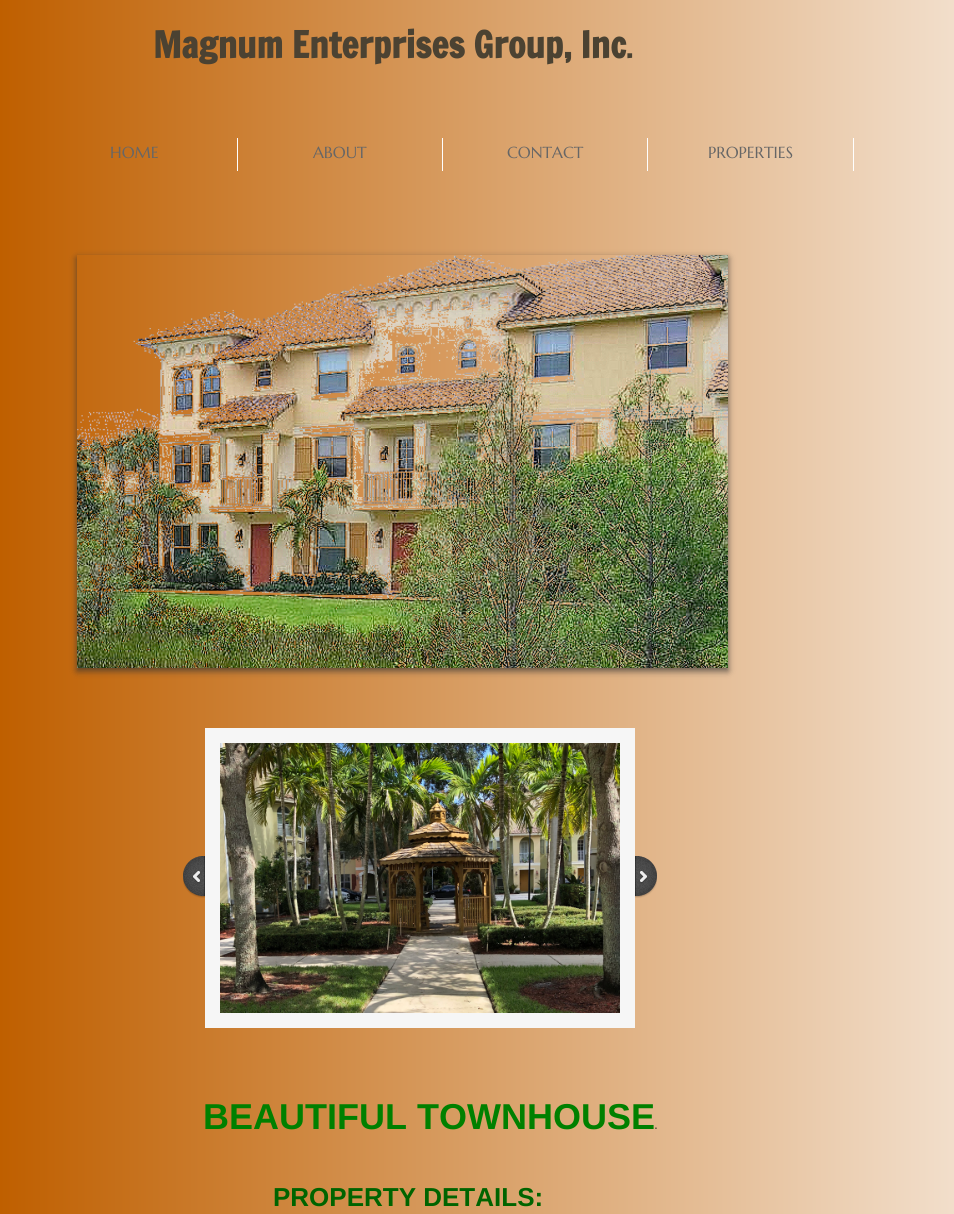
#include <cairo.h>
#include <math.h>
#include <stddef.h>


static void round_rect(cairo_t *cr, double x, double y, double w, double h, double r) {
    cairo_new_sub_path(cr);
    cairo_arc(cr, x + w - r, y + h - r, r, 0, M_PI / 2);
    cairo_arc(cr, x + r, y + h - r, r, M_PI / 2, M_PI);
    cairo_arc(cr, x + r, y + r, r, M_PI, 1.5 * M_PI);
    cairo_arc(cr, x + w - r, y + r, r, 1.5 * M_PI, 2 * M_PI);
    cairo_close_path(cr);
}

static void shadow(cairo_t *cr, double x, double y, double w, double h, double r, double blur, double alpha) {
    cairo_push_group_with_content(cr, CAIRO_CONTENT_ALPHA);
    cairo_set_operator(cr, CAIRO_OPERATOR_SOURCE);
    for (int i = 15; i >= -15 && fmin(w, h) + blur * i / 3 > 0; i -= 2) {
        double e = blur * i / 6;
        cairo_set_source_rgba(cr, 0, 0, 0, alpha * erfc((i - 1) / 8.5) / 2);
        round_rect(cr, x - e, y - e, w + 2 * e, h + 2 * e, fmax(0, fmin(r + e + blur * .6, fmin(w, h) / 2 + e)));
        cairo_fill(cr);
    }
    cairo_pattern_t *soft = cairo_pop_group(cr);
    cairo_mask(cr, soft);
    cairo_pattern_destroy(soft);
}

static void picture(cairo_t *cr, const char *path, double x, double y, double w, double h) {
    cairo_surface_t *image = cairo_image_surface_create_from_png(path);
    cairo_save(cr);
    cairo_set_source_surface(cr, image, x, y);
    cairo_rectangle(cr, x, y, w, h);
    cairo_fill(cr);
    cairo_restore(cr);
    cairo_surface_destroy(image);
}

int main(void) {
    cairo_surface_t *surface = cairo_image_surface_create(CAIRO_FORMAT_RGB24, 954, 1214);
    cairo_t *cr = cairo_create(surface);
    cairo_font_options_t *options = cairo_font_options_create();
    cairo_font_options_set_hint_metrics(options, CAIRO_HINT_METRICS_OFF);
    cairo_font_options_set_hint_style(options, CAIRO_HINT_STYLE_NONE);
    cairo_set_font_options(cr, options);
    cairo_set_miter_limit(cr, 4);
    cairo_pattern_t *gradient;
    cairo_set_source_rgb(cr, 1, 1, 1);
    cairo_paint(cr);
    gradient = cairo_pattern_create_linear(0, 916, 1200, 916);
    cairo_pattern_add_color_stop_rgba(gradient, 0, 0.749, 0.373, 0, 1);
    cairo_pattern_add_color_stop_rgba(gradient, 1, 1, 1, 1, 1);
    cairo_set_source(cr, gradient);
    cairo_pattern_destroy(gradient);
    cairo_rectangle(cr, 0, 0, 954, 1214);
    cairo_fill(cr);
    cairo_select_font_face(cr, "Francois One", CAIRO_FONT_SLANT_NORMAL, CAIRO_FONT_WEIGHT_BOLD);
    cairo_set_font_size(cr, 36);
    cairo_set_source_rgb(cr, 0.294, 0.259, 0.196);
    cairo_move_to(cr, 153, 58);
    cairo_show_text(cr, "Magnum Enterprises Group, Inc");
    cairo_set_font_size(cr, 28);
    cairo_move_to(cr, 626, 58);
    cairo_show_text(cr, ".");
    cairo_set_source_rgb(cr, 1, 1, 1);
    cairo_rectangle(cr, 237, 138, 1, 33);
    cairo_fill(cr);
    cairo_select_font_face(cr, "Marcellus", CAIRO_FONT_SLANT_NORMAL, CAIRO_FONT_WEIGHT_NORMAL);
    cairo_set_font_size(cr, 16);
    cairo_set_source_rgb(cr, 0.4, 0.4, 0.4);
    cairo_move_to(cr, 110, 158);
    cairo_show_text(cr, "HOME");
    cairo_set_source_rgb(cr, 1, 1, 1);
    cairo_rectangle(cr, 442, 138, 1, 33);
    cairo_fill(cr);
    cairo_set_source_rgb(cr, 0.4, 0.4, 0.4);
    cairo_move_to(cr, 313, 158);
    cairo_show_text(cr, "ABOUT");
    cairo_set_source_rgb(cr, 1, 1, 1);
    cairo_rectangle(cr, 647, 138, 1, 33);
    cairo_fill(cr);
    cairo_set_source_rgb(cr, 0.4, 0.4, 0.4);
    cairo_move_to(cr, 507, 158);
    cairo_show_text(cr, "CONTACT");
    cairo_set_source_rgb(cr, 1, 1, 1);
    cairo_rectangle(cr, 853, 138, 1, 33);
    cairo_fill(cr);
    cairo_set_source_rgb(cr, 0.4, 0.4, 0.4);
    cairo_move_to(cr, 708, 158);
    cairo_show_text(cr, "PROPERTIES");
    cairo_save(cr);
    cairo_set_fill_rule(cr, CAIRO_FILL_RULE_EVEN_ODD);
    cairo_new_path(cr);
    cairo_move_to(cr, 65, 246);
    cairo_line_to(cr, 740, 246);
    cairo_line_to(cr, 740, 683);
    cairo_line_to(cr, 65, 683);
    cairo_close_path(cr);
    cairo_move_to(cr, 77, 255);
    cairo_line_to(cr, 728, 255);
    cairo_line_to(cr, 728, 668);
    cairo_line_to(cr, 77, 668);
    cairo_close_path(cr);
    cairo_clip(cr);
    cairo_set_source_rgb(cr, 0.196, 0.196, 0.196);
    shadow(cr, 77, 258, 651, 413, 0, 3.5, 0.75);
    cairo_restore(cr);
    picture(cr, "img1.png", 77, 255, 651, 413);
    picture(cr, "img2.png", 183, 856, 22, 42);
    cairo_rectangle(cr, 212.5, 735.5, 415, 285);
    cairo_set_source_rgb(cr, 0.961, 0.961, 0.961);
    cairo_set_line_width(cr, 15);
    cairo_stroke(cr);
    picture(cr, "img3.png", 220, 743, 400, 270);
    picture(cr, "img4.png", 635, 856, 22, 42);
    cairo_select_font_face(cr, "Liberation Sans", CAIRO_FONT_SLANT_NORMAL, CAIRO_FONT_WEIGHT_BOLD);
    cairo_set_font_size(cr, 36);
    cairo_set_source_rgb(cr, 0, 0.502, 0);
    cairo_move_to(cr, 203, 1129);
    cairo_show_text(cr, "BEAUTIFUL TOWNHOUSE");
    cairo_select_font_face(cr, "Liberation Sans", CAIRO_FONT_SLANT_NORMAL, CAIRO_FONT_WEIGHT_NORMAL);
    cairo_set_font_size(cr, 14);
    cairo_set_source_rgb(cr, 0.294, 0.259, 0.196);
    cairo_move_to(cr, 654, 1129);
    cairo_show_text(cr, ".");
    cairo_select_font_face(cr, "Liberation Sans", CAIRO_FONT_SLANT_NORMAL, CAIRO_FONT_WEIGHT_BOLD);
    cairo_set_font_size(cr, 26);
    cairo_set_source_rgb(cr, 0, 0.392, 0);
    cairo_move_to(cr, 273, 1206);
    cairo_show_text(cr, "PROPERTY DETAILS:");
    cairo_surface_write_to_png(surface, "page.png");
    cairo_font_options_destroy(options);
    cairo_destroy(cr);
    cairo_surface_destroy(surface);
    return 0;
}
